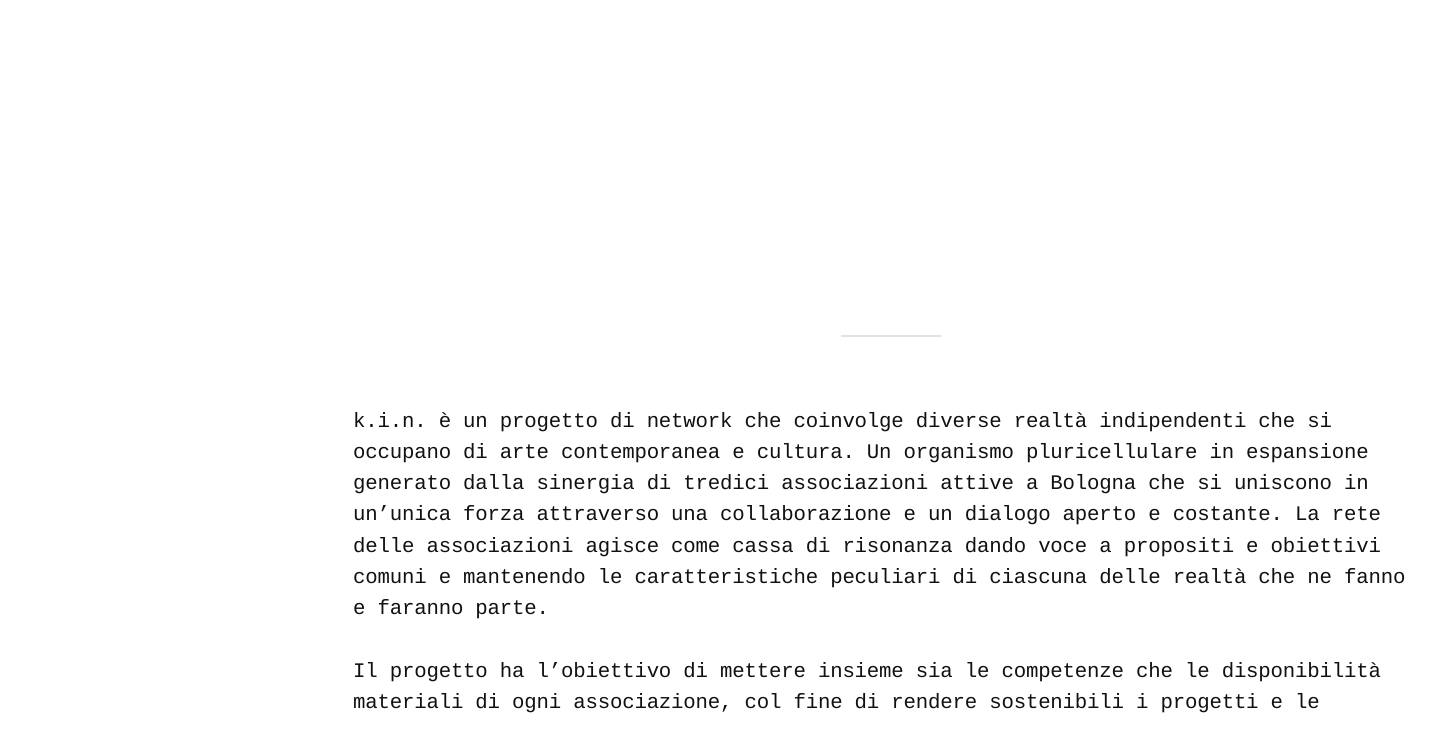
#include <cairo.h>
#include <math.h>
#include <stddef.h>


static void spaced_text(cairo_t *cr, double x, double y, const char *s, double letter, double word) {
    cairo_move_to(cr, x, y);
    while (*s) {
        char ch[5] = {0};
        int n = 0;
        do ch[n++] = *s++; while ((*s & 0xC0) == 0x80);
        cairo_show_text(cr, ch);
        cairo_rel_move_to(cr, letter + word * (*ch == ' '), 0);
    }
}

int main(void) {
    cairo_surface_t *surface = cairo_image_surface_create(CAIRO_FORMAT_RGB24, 1429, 735);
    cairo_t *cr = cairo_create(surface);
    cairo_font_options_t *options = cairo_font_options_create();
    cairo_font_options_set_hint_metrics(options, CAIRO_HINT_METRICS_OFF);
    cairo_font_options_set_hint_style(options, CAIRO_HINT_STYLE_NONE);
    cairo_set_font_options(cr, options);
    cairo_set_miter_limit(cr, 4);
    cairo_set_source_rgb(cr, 1, 1, 1);
    cairo_paint(cr);
    cairo_set_source_rgb(cr, 0.886, 0.886, 0.886);
    cairo_rectangle(cr, 841, 335, 100, 2);
    cairo_fill(cr);
    cairo_select_font_face(cr, "Liberation Mono", CAIRO_FONT_SLANT_NORMAL, CAIRO_FONT_WEIGHT_NORMAL);
    cairo_set_font_size(cr, 20.72);
    cairo_set_source_rgb(cr, 0.067, 0.067, 0.067);
    spaced_text(cr, 353, 427, "k.i.n. è un progetto di network che coinvolge diverse realtà indipendenti che si", -0.2, 0);
    spaced_text(cr, 353, 458, "occupano di arte contemporanea e cultura. Un organismo pluricellulare in espansione", -0.2, 0);
    spaced_text(cr, 353, 489, "generato dalla sinergia di tredici associazioni attive a Bologna che si uniscono in", -0.2, 0);
    spaced_text(cr, 353, 520, "un’unica forza attraverso una collaborazione e un dialogo aperto e costante. La rete", -0.2, 0);
    spaced_text(cr, 353, 552, "delle associazioni agisce come cassa di risonanza dando voce a propositi e obiettivi", -0.2, 0);
    spaced_text(cr, 353, 583, "comuni e mantenendo le caratteristiche peculiari di ciascuna delle realtà che ne fanno", -0.2, 0);
    spaced_text(cr, 353, 614, "e faranno parte.", -0.2, 0);
    spaced_text(cr, 353, 677, "Il progetto ha l’obiettivo di mettere insieme sia le competenze che le disponibilità", -0.2, 0);
    spaced_text(cr, 353, 708, "materiali di ogni associazione, col fine di rendere sostenibili i progetti e le", -0.2, 0);
    cairo_surface_write_to_png(surface, "page.png");
    cairo_font_options_destroy(options);
    cairo_destroy(cr);
    cairo_surface_destroy(surface);
    return 0;
}
